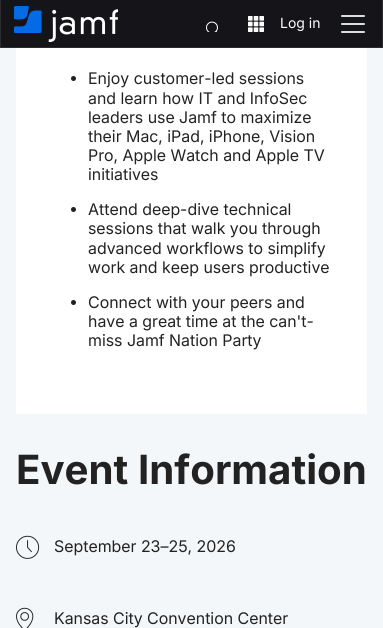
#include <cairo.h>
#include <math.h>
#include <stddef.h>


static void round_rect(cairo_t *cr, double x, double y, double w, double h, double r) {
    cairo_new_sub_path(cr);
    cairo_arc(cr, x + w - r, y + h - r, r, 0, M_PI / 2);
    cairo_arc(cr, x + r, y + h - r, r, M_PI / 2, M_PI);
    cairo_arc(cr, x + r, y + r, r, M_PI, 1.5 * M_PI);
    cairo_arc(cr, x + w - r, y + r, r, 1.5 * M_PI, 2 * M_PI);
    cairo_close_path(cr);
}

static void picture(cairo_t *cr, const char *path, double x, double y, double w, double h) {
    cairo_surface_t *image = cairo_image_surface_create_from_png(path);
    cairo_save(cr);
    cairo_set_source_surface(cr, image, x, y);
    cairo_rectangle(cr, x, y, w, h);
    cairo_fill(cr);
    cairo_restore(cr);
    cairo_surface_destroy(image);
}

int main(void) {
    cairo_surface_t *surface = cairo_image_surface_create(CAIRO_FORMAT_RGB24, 383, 628);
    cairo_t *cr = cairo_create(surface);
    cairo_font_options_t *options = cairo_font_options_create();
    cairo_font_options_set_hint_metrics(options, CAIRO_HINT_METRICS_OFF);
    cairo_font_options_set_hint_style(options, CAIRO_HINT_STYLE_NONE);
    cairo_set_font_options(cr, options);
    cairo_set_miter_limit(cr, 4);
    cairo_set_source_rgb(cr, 0.957, 0.965, 0.976);
    cairo_paint(cr);
    cairo_set_source_rgb(cr, 0.082, 0.082, 0.098);
    cairo_rectangle(cr, 0.5, -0.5, 382, 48);
    cairo_fill_preserve(cr);
    cairo_set_source_rgb(cr, 0.173, 0.173, 0.188);
    cairo_set_line_width(cr, 1);
    cairo_stroke(cr);
    picture(cr, "img1.png", 14, 6, 104, 36);
    cairo_set_source_rgb(cr, 0.847, 0.867, 0.886);
    round_rect(cr, 341, 15, 24, 2, 1);
    cairo_fill(cr);
    round_rect(cr, 341, 23, 24, 2, 1);
    cairo_fill(cr);
    round_rect(cr, 341, 31, 24, 2, 1);
    cairo_fill(cr);
    picture(cr, "img2.png", 206, 21, 12, 11);
    picture(cr, "img3.png", 248, 16, 16, 16);
    cairo_select_font_face(cr, "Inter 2", CAIRO_FONT_SLANT_NORMAL, CAIRO_FONT_WEIGHT_NORMAL);
    cairo_set_font_size(cr, 14);
    cairo_set_source_rgb(cr, 1, 1, 1);
    cairo_move_to(cr, 280, 28);
    cairo_show_text(cr, "Log in");
    cairo_rectangle(cr, 16, 48, 351, 366);
    cairo_fill(cr);
    cairo_set_source_rgb(cr, 0.133, 0.133, 0.133);
    cairo_arc(cr, 73.5, 78.5, 2.5, 0, 2 * M_PI);
    cairo_fill(cr);
    cairo_select_font_face(cr, "Inter", CAIRO_FONT_SLANT_NORMAL, CAIRO_FONT_WEIGHT_NORMAL);
    cairo_set_font_size(cr, 16);
    cairo_move_to(cr, 88, 84);
    cairo_show_text(cr, "Enjoy customer-led sessions");
    cairo_move_to(cr, 88, 104);
    cairo_show_text(cr, "and learn how IT and InfoSec");
    cairo_move_to(cr, 88, 123);
    cairo_show_text(cr, "leaders use Jamf to maximize");
    cairo_move_to(cr, 88, 142);
    cairo_show_text(cr, "their Mac, iPad, iPhone, Vision");
    cairo_move_to(cr, 88, 161);
    cairo_show_text(cr, "Pro, Apple Watch and Apple TV");
    cairo_move_to(cr, 88, 180);
    cairo_show_text(cr, "initiatives");
    cairo_new_path(cr);
    cairo_arc(cr, 73.5, 209.5, 2.5, 0, 2 * M_PI);
    cairo_fill(cr);
    cairo_move_to(cr, 88, 215);
    cairo_show_text(cr, "Attend deep-dive technical");
    cairo_move_to(cr, 88, 234);
    cairo_show_text(cr, "sessions that walk you through");
    cairo_move_to(cr, 88, 254);
    cairo_show_text(cr, "advanced workflows to simplify");
    cairo_move_to(cr, 88, 273);
    cairo_show_text(cr, "work and keep users productive");
    cairo_new_path(cr);
    cairo_arc(cr, 73.5, 302.5, 2.5, 0, 2 * M_PI);
    cairo_fill(cr);
    cairo_move_to(cr, 88, 308);
    cairo_show_text(cr, "Connect with your peers and");
    cairo_move_to(cr, 88, 327);
    cairo_show_text(cr, "have a great time at the can't-");
    cairo_move_to(cr, 88, 346);
    cairo_show_text(cr, "miss Jamf Nation Party");
    cairo_select_font_face(cr, "Inter", CAIRO_FONT_SLANT_NORMAL, CAIRO_FONT_WEIGHT_BOLD);
    cairo_set_font_size(cr, 40.25);
    cairo_move_to(cr, 16, 484);
    cairo_show_text(cr, "Event Information");
    picture(cr, "img4.png", 16, 535, 24, 24);
    cairo_select_font_face(cr, "Inter", CAIRO_FONT_SLANT_NORMAL, CAIRO_FONT_WEIGHT_NORMAL);
    cairo_set_font_size(cr, 16);
    cairo_move_to(cr, 54, 552);
    cairo_show_text(cr, "September 23–25, 2026");
    picture(cr, "img5.png", 16, 607, 18, 21);
    cairo_move_to(cr, 54, 624);
    cairo_show_text(cr, "Kansas City Convention Center");
    cairo_surface_write_to_png(surface, "page.png");
    cairo_font_options_destroy(options);
    cairo_destroy(cr);
    cairo_surface_destroy(surface);
    return 0;
}
